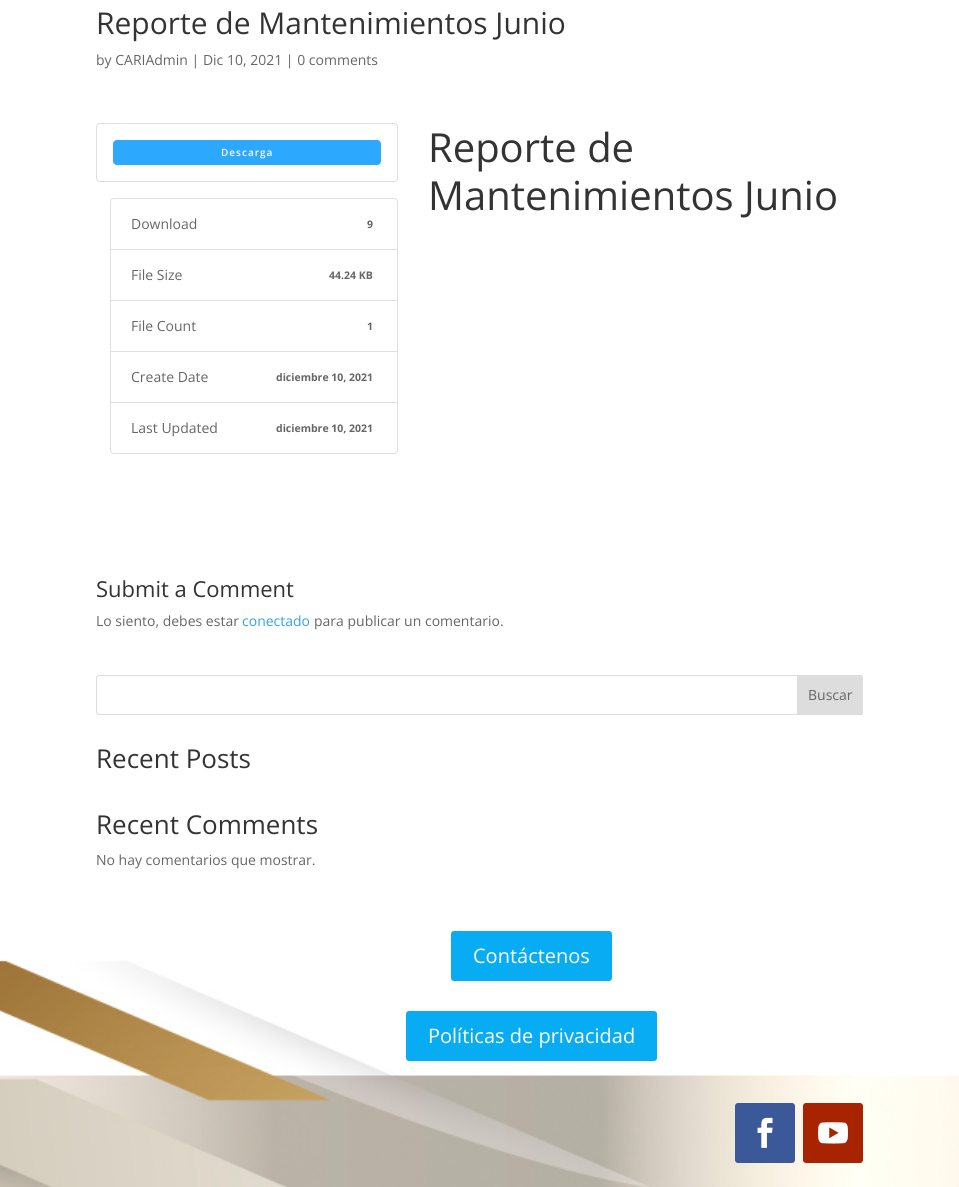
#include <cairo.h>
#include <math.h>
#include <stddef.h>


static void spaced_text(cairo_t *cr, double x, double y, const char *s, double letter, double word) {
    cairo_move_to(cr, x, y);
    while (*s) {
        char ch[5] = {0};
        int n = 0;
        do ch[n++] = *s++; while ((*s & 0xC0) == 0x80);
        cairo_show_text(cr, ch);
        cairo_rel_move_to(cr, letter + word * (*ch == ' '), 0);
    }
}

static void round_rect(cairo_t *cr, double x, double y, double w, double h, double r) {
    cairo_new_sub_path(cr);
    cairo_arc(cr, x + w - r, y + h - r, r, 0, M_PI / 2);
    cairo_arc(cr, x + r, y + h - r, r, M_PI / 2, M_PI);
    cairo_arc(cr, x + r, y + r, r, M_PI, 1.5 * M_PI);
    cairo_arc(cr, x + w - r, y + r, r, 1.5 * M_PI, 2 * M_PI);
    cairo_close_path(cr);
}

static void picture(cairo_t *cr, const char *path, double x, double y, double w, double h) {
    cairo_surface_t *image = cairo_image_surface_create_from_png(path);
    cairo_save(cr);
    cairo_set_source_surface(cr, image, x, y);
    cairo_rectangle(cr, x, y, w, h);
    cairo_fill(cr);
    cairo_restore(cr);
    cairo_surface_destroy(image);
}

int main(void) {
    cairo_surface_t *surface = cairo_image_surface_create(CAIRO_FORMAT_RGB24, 959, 1187);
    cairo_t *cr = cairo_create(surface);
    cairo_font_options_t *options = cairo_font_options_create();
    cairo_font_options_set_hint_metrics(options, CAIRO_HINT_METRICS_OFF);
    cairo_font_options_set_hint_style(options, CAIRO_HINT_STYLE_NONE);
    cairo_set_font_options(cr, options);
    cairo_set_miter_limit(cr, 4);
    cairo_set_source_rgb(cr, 1, 1, 1);
    cairo_paint(cr);
    cairo_select_font_face(cr, "Open Sans", CAIRO_FONT_SLANT_NORMAL, CAIRO_FONT_WEIGHT_NORMAL);
    cairo_set_font_size(cr, 30);
    cairo_set_source_rgb(cr, 0.2, 0.2, 0.2);
    cairo_move_to(cr, 96, 34);
    cairo_show_text(cr, "Reporte de Mantenimientos Junio");
    cairo_set_font_size(cr, 14);
    cairo_set_source_rgb(cr, 0.4, 0.4, 0.4);
    cairo_move_to(cr, 96, 65);
    cairo_show_text(cr, "by CARIAdmin | Dic 10, 2021 | 0 comments");
    round_rect(cr, 96.5, 123.5, 301, 58, 3.5);
    cairo_set_source_rgb(cr, 0.875, 0.875, 0.875);
    cairo_set_line_width(cr, 1);
    cairo_stroke(cr);
    cairo_set_source_rgb(cr, 0.173, 0.659, 1);
    round_rect(cr, 113.5, 140.5, 267, 24, 3.5);
    cairo_fill_preserve(cr);
    cairo_stroke(cr);
    cairo_select_font_face(cr, "Open Sans SemiBold", CAIRO_FONT_SLANT_NORMAL, CAIRO_FONT_WEIGHT_NORMAL);
    cairo_set_font_size(cr, 10);
    cairo_set_source_rgb(cr, 1, 1, 1);
    spaced_text(cr, 221, 156, "Descarga", 1, 0);
    cairo_new_path(cr);
    cairo_move_to(cr, 114, 198.5);
    cairo_line_to(cr, 394, 198.5);
    cairo_curve_to(cr, 396, 198.5, 397.5, 200, 397.5, 202);
    cairo_line_to(cr, 397.5, 249.5);
    cairo_line_to(cr, 110.5, 249.5);
    cairo_line_to(cr, 110.5, 202);
    cairo_curve_to(cr, 110.5, 200, 112, 198.5, 114, 198.5);
    cairo_close_path(cr);
    cairo_set_source_rgb(cr, 0.875, 0.875, 0.875);
    cairo_stroke(cr);
    cairo_select_font_face(cr, "Open Sans", CAIRO_FONT_SLANT_NORMAL, CAIRO_FONT_WEIGHT_NORMAL);
    cairo_set_font_size(cr, 14);
    cairo_set_source_rgb(cr, 0.4, 0.4, 0.4);
    cairo_move_to(cr, 131, 229);
    cairo_show_text(cr, "Download");
    cairo_select_font_face(cr, "Open Sans", CAIRO_FONT_SLANT_NORMAL, CAIRO_FONT_WEIGHT_BOLD);
    cairo_set_font_size(cr, 10.5);
    cairo_move_to(cr, 367, 228);
    cairo_show_text(cr, "9");
    cairo_rectangle(cr, 110.5, 249.5, 287, 51);
    cairo_set_source_rgb(cr, 0.875, 0.875, 0.875);
    cairo_stroke(cr);
    cairo_select_font_face(cr, "Open Sans", CAIRO_FONT_SLANT_NORMAL, CAIRO_FONT_WEIGHT_NORMAL);
    cairo_set_font_size(cr, 14);
    cairo_set_source_rgb(cr, 0.4, 0.4, 0.4);
    cairo_move_to(cr, 131, 280);
    cairo_show_text(cr, "File Size");
    cairo_select_font_face(cr, "Open Sans", CAIRO_FONT_SLANT_NORMAL, CAIRO_FONT_WEIGHT_BOLD);
    cairo_set_font_size(cr, 10.5);
    cairo_move_to(cr, 329, 279);
    cairo_show_text(cr, "44.24 KB");
    cairo_rectangle(cr, 110.5, 300.5, 287, 51);
    cairo_set_source_rgb(cr, 0.875, 0.875, 0.875);
    cairo_stroke(cr);
    cairo_select_font_face(cr, "Open Sans", CAIRO_FONT_SLANT_NORMAL, CAIRO_FONT_WEIGHT_NORMAL);
    cairo_set_font_size(cr, 14);
    cairo_set_source_rgb(cr, 0.4, 0.4, 0.4);
    cairo_move_to(cr, 131, 331);
    cairo_show_text(cr, "File Count");
    cairo_select_font_face(cr, "Open Sans", CAIRO_FONT_SLANT_NORMAL, CAIRO_FONT_WEIGHT_BOLD);
    cairo_set_font_size(cr, 10.5);
    cairo_move_to(cr, 367, 330);
    cairo_show_text(cr, "1");
    cairo_rectangle(cr, 110.5, 351.5, 287, 51);
    cairo_set_source_rgb(cr, 0.875, 0.875, 0.875);
    cairo_stroke(cr);
    cairo_select_font_face(cr, "Open Sans", CAIRO_FONT_SLANT_NORMAL, CAIRO_FONT_WEIGHT_NORMAL);
    cairo_set_font_size(cr, 14);
    cairo_set_source_rgb(cr, 0.4, 0.4, 0.4);
    cairo_move_to(cr, 131, 382);
    cairo_show_text(cr, "Create Date");
    cairo_select_font_face(cr, "Open Sans", CAIRO_FONT_SLANT_NORMAL, CAIRO_FONT_WEIGHT_BOLD);
    cairo_set_font_size(cr, 10.5);
    cairo_move_to(cr, 276, 381);
    cairo_show_text(cr, "diciembre 10, 2021");
    cairo_set_source_rgb(cr, 1, 1, 1);
    cairo_new_path(cr);
    cairo_move_to(cr, 110.5, 402.5);
    cairo_line_to(cr, 397.5, 402.5);
    cairo_line_to(cr, 397.5, 450);
    cairo_curve_to(cr, 397.5, 452, 396, 453.5, 394, 453.5);
    cairo_line_to(cr, 114, 453.5);
    cairo_curve_to(cr, 112, 453.5, 110.5, 452, 110.5, 450);
    cairo_close_path(cr);
    cairo_fill_preserve(cr);
    cairo_set_source_rgb(cr, 0.875, 0.875, 0.875);
    cairo_stroke(cr);
    cairo_select_font_face(cr, "Open Sans", CAIRO_FONT_SLANT_NORMAL, CAIRO_FONT_WEIGHT_NORMAL);
    cairo_set_font_size(cr, 14);
    cairo_set_source_rgb(cr, 0.4, 0.4, 0.4);
    cairo_move_to(cr, 131, 433);
    cairo_show_text(cr, "Last Updated");
    cairo_select_font_face(cr, "Open Sans", CAIRO_FONT_SLANT_NORMAL, CAIRO_FONT_WEIGHT_BOLD);
    cairo_set_font_size(cr, 10.5);
    cairo_move_to(cr, 276, 432);
    cairo_show_text(cr, "diciembre 10, 2021");
    cairo_select_font_face(cr, "Open Sans", CAIRO_FONT_SLANT_NORMAL, CAIRO_FONT_WEIGHT_NORMAL);
    cairo_set_font_size(cr, 40);
    cairo_set_source_rgb(cr, 0.2, 0.2, 0.2);
    cairo_move_to(cr, 428, 162);
    cairo_show_text(cr, "Reporte de");
    cairo_move_to(cr, 428, 210);
    cairo_show_text(cr, "Mantenimientos Junio");
    cairo_set_font_size(cr, 22);
    cairo_move_to(cr, 96, 597);
    cairo_show_text(cr, "Submit a Comment");
    cairo_set_font_size(cr, 14);
    cairo_set_source_rgb(cr, 0.4, 0.4, 0.4);
    cairo_move_to(cr, 96, 626);
    cairo_show_text(cr, "Lo siento, debes estar");
    cairo_set_source_rgb(cr, 0.18, 0.639, 0.949);
    cairo_move_to(cr, 242, 626);
    cairo_show_text(cr, "conectado");
    cairo_set_source_rgb(cr, 0.4, 0.4, 0.4);
    cairo_move_to(cr, 314, 626);
    cairo_show_text(cr, "para publicar un comentario.");
    round_rect(cr, 96.5, 675.5, 766, 39, 2.5);
    cairo_set_source_rgb(cr, 0.867, 0.867, 0.867);
    cairo_stroke(cr);
    cairo_new_path(cr);
    cairo_move_to(cr, 797.5, 675.5);
    cairo_line_to(cr, 860, 675.5);
    cairo_curve_to(cr, 861.5, 675.5, 862.5, 676.5, 862.5, 678);
    cairo_line_to(cr, 862.5, 712);
    cairo_curve_to(cr, 862.5, 713.5, 861.5, 714.5, 860, 714.5);
    cairo_line_to(cr, 797.5, 714.5);
    cairo_close_path(cr);
    cairo_fill_preserve(cr);
    cairo_stroke(cr);
    cairo_set_source_rgb(cr, 0.4, 0.4, 0.4);
    cairo_move_to(cr, 808, 700);
    cairo_show_text(cr, "Buscar");
    cairo_set_font_size(cr, 26);
    cairo_set_source_rgb(cr, 0.2, 0.2, 0.2);
    cairo_move_to(cr, 96, 768);
    cairo_show_text(cr, "Recent Posts");
    cairo_move_to(cr, 96, 834);
    cairo_show_text(cr, "Recent Comments");
    cairo_set_font_size(cr, 14);
    cairo_set_source_rgb(cr, 0.4, 0.4, 0.4);
    cairo_move_to(cr, 96, 865);
    cairo_show_text(cr, "No hay comentarios que mostrar.");
    picture(cr, "img1.png", 0, 959, 959, 228);
    cairo_set_source_rgb(cr, 0.035, 0.675, 0.949);
    round_rect(cr, 452, 932, 159, 48, 2);
    cairo_fill_preserve(cr);
    cairo_set_line_width(cr, 2);
    cairo_stroke(cr);
    cairo_set_font_size(cr, 20);
    cairo_set_source_rgb(cr, 1, 1, 1);
    cairo_move_to(cr, 473, 963);
    cairo_show_text(cr, "Contáctenos");
    cairo_set_source_rgb(cr, 0.035, 0.675, 0.949);
    round_rect(cr, 407, 1012, 249, 48, 2);
    cairo_fill_preserve(cr);
    cairo_stroke(cr);
    cairo_set_source_rgb(cr, 1, 1, 1);
    cairo_move_to(cr, 428, 1043);
    cairo_show_text(cr, "Políticas de privacidad");
    cairo_set_source_rgb(cr, 0.231, 0.349, 0.596);
    round_rect(cr, 735, 1103, 60, 60, 3);
    cairo_fill(cr);
    picture(cr, "img2.png", 757, 1117, 16, 31);
    cairo_set_source_rgb(cr, 0.659, 0.141, 0);
    round_rect(cr, 803, 1103, 60, 60, 3);
    cairo_fill(cr);
    picture(cr, "img3.png", 818, 1122, 30, 22);
    cairo_surface_write_to_png(surface, "page.png");
    cairo_font_options_destroy(options);
    cairo_destroy(cr);
    cairo_surface_destroy(surface);
    return 0;
}
